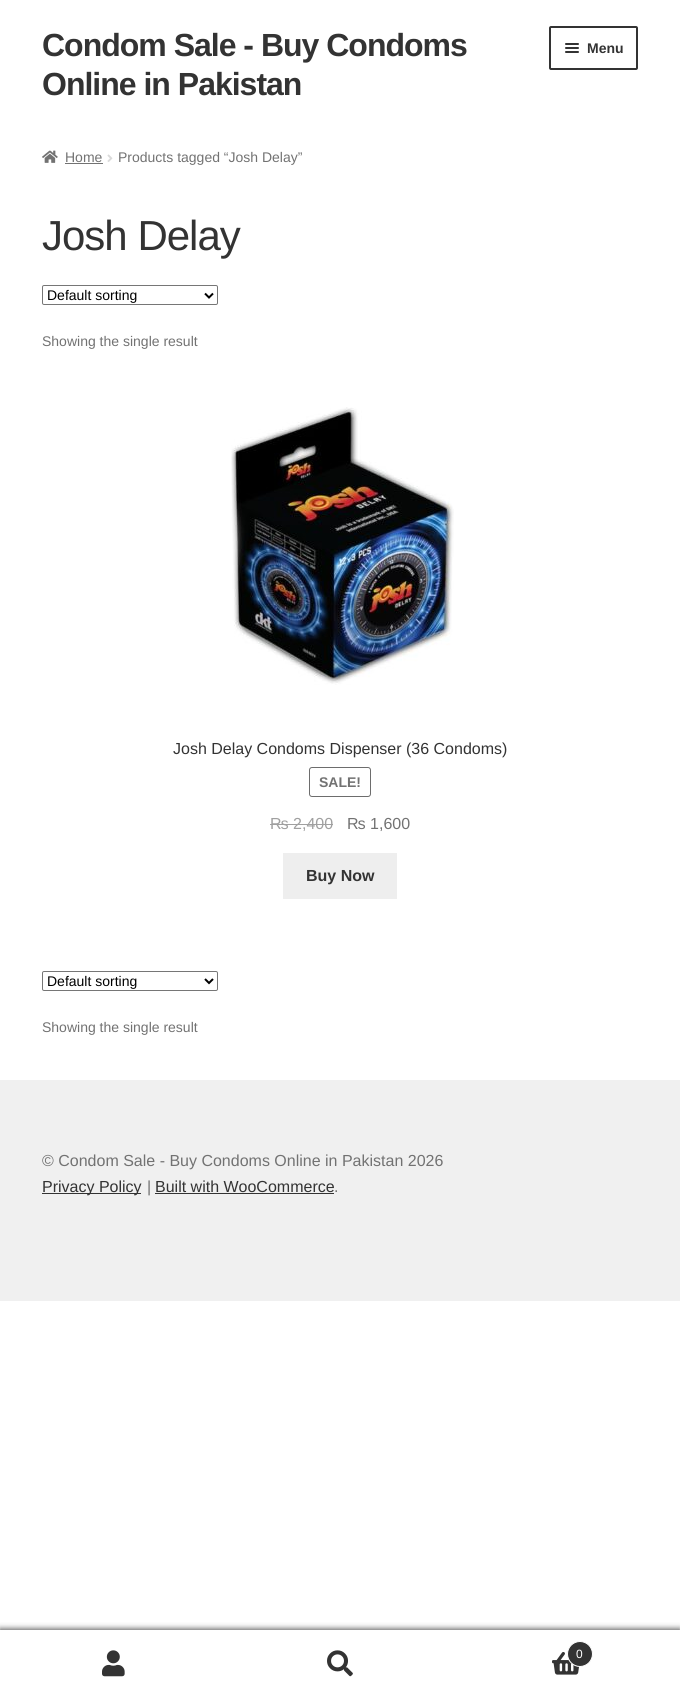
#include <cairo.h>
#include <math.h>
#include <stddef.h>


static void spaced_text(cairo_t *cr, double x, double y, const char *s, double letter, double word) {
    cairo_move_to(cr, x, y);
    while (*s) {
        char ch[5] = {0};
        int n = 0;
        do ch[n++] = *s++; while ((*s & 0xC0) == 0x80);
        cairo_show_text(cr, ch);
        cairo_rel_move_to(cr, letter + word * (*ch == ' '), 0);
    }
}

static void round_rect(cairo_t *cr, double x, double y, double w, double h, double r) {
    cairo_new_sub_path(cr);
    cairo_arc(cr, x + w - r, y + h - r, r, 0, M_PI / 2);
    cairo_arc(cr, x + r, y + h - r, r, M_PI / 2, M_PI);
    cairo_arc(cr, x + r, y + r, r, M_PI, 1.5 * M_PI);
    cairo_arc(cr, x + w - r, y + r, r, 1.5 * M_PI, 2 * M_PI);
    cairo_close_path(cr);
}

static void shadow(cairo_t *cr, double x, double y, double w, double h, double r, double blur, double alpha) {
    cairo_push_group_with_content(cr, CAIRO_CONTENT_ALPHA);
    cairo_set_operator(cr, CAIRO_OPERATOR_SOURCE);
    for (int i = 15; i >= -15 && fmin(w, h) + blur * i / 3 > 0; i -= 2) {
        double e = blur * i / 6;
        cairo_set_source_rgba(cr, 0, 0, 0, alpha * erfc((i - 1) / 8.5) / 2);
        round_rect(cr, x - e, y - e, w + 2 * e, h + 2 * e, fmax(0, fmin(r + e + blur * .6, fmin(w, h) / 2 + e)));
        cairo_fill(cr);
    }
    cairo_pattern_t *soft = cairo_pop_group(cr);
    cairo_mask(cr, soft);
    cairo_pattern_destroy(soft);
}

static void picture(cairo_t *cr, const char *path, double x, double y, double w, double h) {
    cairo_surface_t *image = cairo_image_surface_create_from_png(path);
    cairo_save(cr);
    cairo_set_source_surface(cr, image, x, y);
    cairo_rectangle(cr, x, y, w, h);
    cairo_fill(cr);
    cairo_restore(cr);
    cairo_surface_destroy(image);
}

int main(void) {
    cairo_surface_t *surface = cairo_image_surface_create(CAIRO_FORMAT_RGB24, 680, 1698);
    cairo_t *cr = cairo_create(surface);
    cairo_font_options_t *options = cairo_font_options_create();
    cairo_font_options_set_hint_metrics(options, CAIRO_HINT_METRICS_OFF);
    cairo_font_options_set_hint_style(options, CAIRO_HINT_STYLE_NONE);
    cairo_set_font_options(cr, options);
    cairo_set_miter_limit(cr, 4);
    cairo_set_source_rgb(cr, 1, 1, 1);
    cairo_paint(cr);
    cairo_select_font_face(cr, "Liberation Sans", CAIRO_FONT_SLANT_NORMAL, CAIRO_FONT_WEIGHT_BOLD);
    cairo_set_font_size(cr, 32);
    cairo_set_source_rgb(cr, 0.2, 0.2, 0.2);
    spaced_text(cr, 42, 56, "Condom Sale - Buy Condoms", -1, 0);
    spaced_text(cr, 42, 95, "Online in Pakistan", -1, 0);
    round_rect(cr, 550, 27, 87, 42, 1);
    cairo_stroke(cr);
    round_rect(cr, 565, 43, 14, 2, 1);
    cairo_fill(cr);
    round_rect(cr, 565, 47, 14, 2, 1);
    cairo_fill(cr);
    cairo_set_font_size(cr, 14);
    cairo_move_to(cr, 587, 53);
    cairo_show_text(cr, "Menu");
    round_rect(cr, 565, 51, 14, 2, 1);
    cairo_fill(cr);
    picture(cr, "img1.png", 42, 150, 16, 13);
    cairo_select_font_face(cr, "Liberation Sans", CAIRO_FONT_SLANT_NORMAL, CAIRO_FONT_WEIGHT_NORMAL);
    cairo_set_source_rgb(cr, 0.447, 0.447, 0.447);
    cairo_move_to(cr, 65, 162);
    cairo_show_text(cr, "Home");
    cairo_rectangle(cr, 65, 163, 38, 1);
    cairo_fill(cr);
    picture(cr, "img2.png", 107, 154, 6, 8);
    cairo_move_to(cr, 118, 162);
    cairo_show_text(cr, "Products tagged “Josh Delay”");
    cairo_set_font_size(cr, 42);
    cairo_set_source_rgb(cr, 0.2, 0.2, 0.2);
    spaced_text(cr, 42, 250, "Josh Delay", -1, 0);
    round_rect(cr, 42.5, 285.5, 175, 19, 1.5);
    cairo_set_source_rgb(cr, 0.463, 0.463, 0.463);
    cairo_set_line_width(cr, 1);
    cairo_stroke(cr);
    cairo_new_path(cr);
    cairo_move_to(cr, 205, 293.5);
    cairo_line_to(cr, 209, 297.5);
    cairo_line_to(cr, 213, 293.5);
    cairo_set_source_rgb(cr, 0, 0, 0);
    cairo_set_line_width(cr, 2);
    cairo_stroke(cr);
    cairo_set_font_size(cr, 14);
    cairo_move_to(cr, 47, 300);
    cairo_show_text(cr, "Default sorting");
    cairo_set_source_rgb(cr, 0.447, 0.447, 0.447);
    cairo_move_to(cr, 42, 346);
    cairo_show_text(cr, "Showing the single result");
    picture(cr, "img3.png", 231, 407, 223, 278);
    cairo_set_font_size(cr, 16);
    cairo_set_source_rgb(cr, 0.2, 0.2, 0.2);
    cairo_move_to(cr, 173, 754);
    cairo_show_text(cr, "Josh Delay Condoms Dispenser (36 Condoms)");
    round_rect(cr, 309.5, 767.5, 61, 29, 2.5);
    cairo_set_source_rgb(cr, 0.427, 0.427, 0.427);
    cairo_set_line_width(cr, 1);
    cairo_stroke(cr);
    cairo_select_font_face(cr, "Liberation Sans", CAIRO_FONT_SLANT_NORMAL, CAIRO_FONT_WEIGHT_BOLD);
    cairo_set_font_size(cr, 14);
    cairo_set_source_rgb(cr, 0.447, 0.447, 0.447);
    cairo_move_to(cr, 319, 787);
    cairo_show_text(cr, "SALE!");
    cairo_select_font_face(cr, "Liberation Sans", CAIRO_FONT_SLANT_NORMAL, CAIRO_FONT_WEIGHT_NORMAL);
    cairo_set_font_size(cr, 16);
    cairo_set_source_rgb(cr, 0.627, 0.627, 0.627);
    cairo_move_to(cr, 270, 829);
    cairo_show_text(cr, "₨ 2,400");
    cairo_rectangle(cr, 270, 824, 63, 1);
    cairo_fill(cr);
    cairo_set_source_rgb(cr, 0.447, 0.447, 0.447);
    cairo_move_to(cr, 347, 829);
    cairo_show_text(cr, "₨ 1,600");
    cairo_set_source_rgb(cr, 0.933, 0.933, 0.933);
    cairo_rectangle(cr, 283, 853, 114, 46);
    cairo_fill(cr);
    cairo_select_font_face(cr, "Liberation Sans", CAIRO_FONT_SLANT_NORMAL, CAIRO_FONT_WEIGHT_BOLD);
    cairo_set_source_rgb(cr, 0.2, 0.2, 0.2);
    cairo_move_to(cr, 306, 881);
    cairo_show_text(cr, "Buy Now");
    round_rect(cr, 42.5, 971.5, 175, 19, 1.5);
    cairo_set_source_rgb(cr, 0.463, 0.463, 0.463);
    cairo_stroke(cr);
    cairo_new_path(cr);
    cairo_move_to(cr, 205, 979);
    cairo_line_to(cr, 209, 983);
    cairo_line_to(cr, 213, 979);
    cairo_set_source_rgb(cr, 0, 0, 0);
    cairo_set_line_width(cr, 2);
    cairo_stroke(cr);
    cairo_select_font_face(cr, "Liberation Sans", CAIRO_FONT_SLANT_NORMAL, CAIRO_FONT_WEIGHT_NORMAL);
    cairo_set_font_size(cr, 14);
    cairo_move_to(cr, 47, 986);
    cairo_show_text(cr, "Default sorting");
    cairo_set_source_rgb(cr, 0.447, 0.447, 0.447);
    cairo_move_to(cr, 42, 1032);
    cairo_show_text(cr, "Showing the single result");
    cairo_set_source_rgb(cr, 0.941, 0.941, 0.941);
    cairo_rectangle(cr, 0, 1080, 680, 221);
    cairo_fill(cr);
    cairo_set_font_size(cr, 16);
    cairo_set_source_rgb(cr, 0.447, 0.447, 0.447);
    cairo_move_to(cr, 42, 1166);
    cairo_show_text(cr, "© Condom Sale - Buy Condoms Online in Pakistan 2026");
    cairo_set_source_rgb(cr, 0.2, 0.2, 0.2);
    cairo_rectangle(cr, 42, 1193, 99, 1);
    cairo_fill(cr);
    cairo_move_to(cr, 42, 1192);
    cairo_show_text(cr, "Privacy Policy");
    cairo_set_source_rgb(cr, 0.447, 0.447, 0.447);
    cairo_move_to(cr, 147, 1192);
    cairo_show_text(cr, "|");
    cairo_set_source_rgb(cr, 0.2, 0.2, 0.2);
    cairo_move_to(cr, 155, 1192);
    cairo_show_text(cr, "Built with WooCommerce");
    cairo_rectangle(cr, 155, 1193, 179, 1);
    cairo_fill(cr);
    cairo_set_source_rgb(cr, 0.447, 0.447, 0.447);
    cairo_move_to(cr, 334, 1192);
    cairo_show_text(cr, ".");
    cairo_set_source_rgb(cr, 0, 0, 0);
    shadow(cr, 0, 1629, 680, 69, 0, 3, 0.7);
    cairo_set_source_rgb(cr, 1, 1, 1);
    cairo_rectangle(cr, 0, 1630, 680, 68);
    cairo_fill(cr);
    picture(cr, "img4.png", 102, 1650, 23, 27);
    picture(cr, "img5.png", 327, 1650, 26, 27);
    picture(cr, "img6.png", 552, 1652, 28, 23);
    cairo_set_source_rgb(cr, 0.2, 0.2, 0.2);
    cairo_arc(cr, 580, 1654, 12.5, 0, 2 * M_PI);
    cairo_fill_preserve(cr);
    cairo_set_source_rgb(cr, 1, 1, 1);
    cairo_set_line_width(cr, 1);
    cairo_stroke(cr);
    cairo_set_font_size(cr, 12);
    cairo_move_to(cr, 576, 1658);
    cairo_show_text(cr, "0");
    cairo_surface_write_to_png(surface, "page.png");
    cairo_font_options_destroy(options);
    cairo_destroy(cr);
    cairo_surface_destroy(surface);
    return 0;
}
